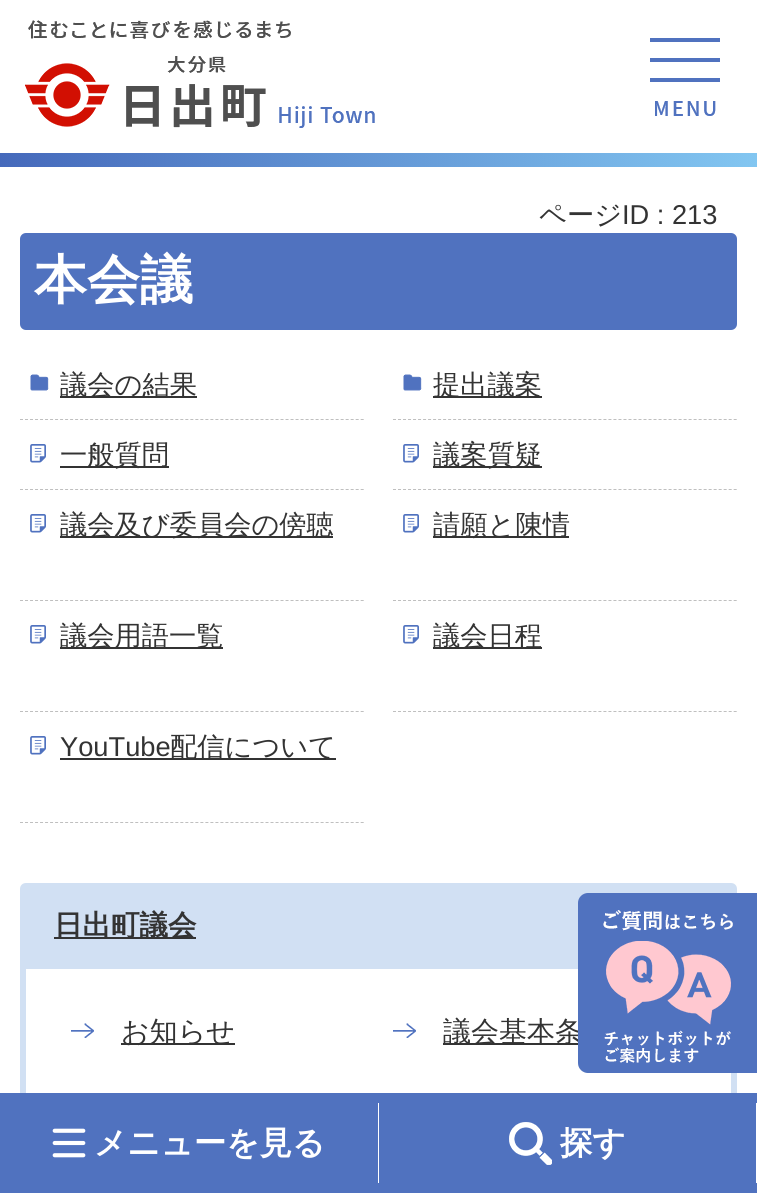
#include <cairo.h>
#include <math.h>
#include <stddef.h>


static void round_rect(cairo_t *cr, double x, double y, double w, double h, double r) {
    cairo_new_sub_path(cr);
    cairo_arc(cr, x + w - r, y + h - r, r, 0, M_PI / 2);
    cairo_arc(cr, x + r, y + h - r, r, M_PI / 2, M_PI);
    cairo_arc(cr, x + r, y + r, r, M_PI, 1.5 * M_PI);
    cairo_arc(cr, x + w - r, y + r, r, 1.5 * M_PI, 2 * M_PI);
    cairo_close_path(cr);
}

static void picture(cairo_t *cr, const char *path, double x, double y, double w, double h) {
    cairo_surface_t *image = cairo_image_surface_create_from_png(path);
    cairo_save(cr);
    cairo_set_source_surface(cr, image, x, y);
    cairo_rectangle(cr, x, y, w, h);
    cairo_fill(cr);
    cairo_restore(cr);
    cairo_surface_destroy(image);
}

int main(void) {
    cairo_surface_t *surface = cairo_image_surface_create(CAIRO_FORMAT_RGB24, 757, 1193);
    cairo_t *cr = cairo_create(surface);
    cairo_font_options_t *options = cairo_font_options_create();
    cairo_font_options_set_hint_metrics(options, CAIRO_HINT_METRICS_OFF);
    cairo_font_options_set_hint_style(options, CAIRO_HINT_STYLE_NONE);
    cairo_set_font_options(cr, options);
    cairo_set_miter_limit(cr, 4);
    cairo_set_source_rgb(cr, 1, 1, 1);
    cairo_paint(cr);
    cairo_select_font_face(cr, "WenQuanYi Zen Hei Medium", CAIRO_FONT_SLANT_NORMAL, CAIRO_FONT_WEIGHT_NORMAL);
    cairo_set_font_size(cr, 27.25);
    cairo_set_source_rgb(cr, 0.2, 0.2, 0.2);
    cairo_move_to(cr, 539, 224);
    cairo_show_text(cr, "ページ");
    cairo_select_font_face(cr, "Liberation Sans", CAIRO_FONT_SLANT_NORMAL, CAIRO_FONT_WEIGHT_NORMAL);
    cairo_move_to(cr, 622, 224);
    cairo_show_text(cr, "ID : 213");
    cairo_set_source_rgb(cr, 0.314, 0.447, 0.749);
    round_rect(cr, 20, 233, 717, 97, 6);
    cairo_fill(cr);
    cairo_select_font_face(cr, "WenQuanYi Zen Hei", CAIRO_FONT_SLANT_NORMAL, CAIRO_FONT_WEIGHT_BOLD);
    cairo_set_font_size(cr, 53);
    cairo_set_source_rgb(cr, 1, 1, 1);
    cairo_move_to(cr, 34, 298);
    cairo_show_text(cr, "本会議");
    picture(cr, "img1.png", 30, 374, 19, 17);
    cairo_new_path(cr);
    cairo_move_to(cr, 20, 419.5);
    cairo_line_to(cr, 364, 419.5);
    cairo_set_source_rgb(cr, 0.749, 0.749, 0.749);
    cairo_set_line_width(cr, 1);
    cairo_set_dash(cr, (double[]){3, 2.01}, 2, 0);
    cairo_stroke(cr);
    cairo_set_source_rgb(cr, 0.2, 0.2, 0.2);
    cairo_rectangle(cr, 60, 396, 137, 2);
    cairo_fill(cr);
    cairo_select_font_face(cr, "WenQuanYi Zen Hei Medium", CAIRO_FONT_SLANT_NORMAL, CAIRO_FONT_WEIGHT_NORMAL);
    cairo_set_font_size(cr, 27.25);
    cairo_move_to(cr, 60, 394);
    cairo_show_text(cr, "議会の結果");
    picture(cr, "img1.png", 403, 374, 19, 17);
    cairo_new_path(cr);
    cairo_move_to(cr, 393, 419.5);
    cairo_line_to(cr, 737, 419.5);
    cairo_set_source_rgb(cr, 0.749, 0.749, 0.749);
    cairo_stroke(cr);
    cairo_set_source_rgb(cr, 0.2, 0.2, 0.2);
    cairo_rectangle(cr, 433, 396, 109, 2);
    cairo_fill(cr);
    cairo_move_to(cr, 433, 394);
    cairo_show_text(cr, "提出議案");
    picture(cr, "img2.png", 30, 444, 16, 19);
    cairo_new_path(cr);
    cairo_move_to(cr, 20, 489.5);
    cairo_line_to(cr, 364, 489.5);
    cairo_set_source_rgb(cr, 0.749, 0.749, 0.749);
    cairo_stroke(cr);
    cairo_set_source_rgb(cr, 0.2, 0.2, 0.2);
    cairo_rectangle(cr, 60, 466, 109, 2);
    cairo_fill(cr);
    cairo_move_to(cr, 60, 464);
    cairo_show_text(cr, "一般質問");
    picture(cr, "img2.png", 403, 444, 16, 19);
    cairo_new_path(cr);
    cairo_move_to(cr, 393, 489.5);
    cairo_line_to(cr, 737, 489.5);
    cairo_set_source_rgb(cr, 0.749, 0.749, 0.749);
    cairo_stroke(cr);
    cairo_set_source_rgb(cr, 0.2, 0.2, 0.2);
    cairo_rectangle(cr, 433, 466, 109, 2);
    cairo_fill(cr);
    cairo_move_to(cr, 433, 464);
    cairo_show_text(cr, "議案質疑");
    picture(cr, "img2.png", 30, 514, 16, 19);
    cairo_new_path(cr);
    cairo_move_to(cr, 20, 600.5);
    cairo_line_to(cr, 364, 600.5);
    cairo_set_source_rgb(cr, 0.749, 0.749, 0.749);
    cairo_stroke(cr);
    cairo_set_source_rgb(cr, 0.2, 0.2, 0.2);
    cairo_rectangle(cr, 60, 536, 273, 2);
    cairo_fill(cr);
    cairo_move_to(cr, 60, 534);
    cairo_show_text(cr, "議会及び委員会の傍聴");
    picture(cr, "img2.png", 403, 514, 16, 19);
    cairo_new_path(cr);
    cairo_move_to(cr, 393, 600.5);
    cairo_line_to(cr, 737, 600.5);
    cairo_set_source_rgb(cr, 0.749, 0.749, 0.749);
    cairo_stroke(cr);
    cairo_set_source_rgb(cr, 0.2, 0.2, 0.2);
    cairo_rectangle(cr, 433, 536, 136, 2);
    cairo_fill(cr);
    cairo_move_to(cr, 433, 534);
    cairo_show_text(cr, "請願と陳情");
    picture(cr, "img2.png", 30, 625, 16, 19);
    cairo_new_path(cr);
    cairo_move_to(cr, 20, 711.5);
    cairo_line_to(cr, 364, 711.5);
    cairo_set_source_rgb(cr, 0.749, 0.749, 0.749);
    cairo_stroke(cr);
    cairo_set_source_rgb(cr, 0.2, 0.2, 0.2);
    cairo_rectangle(cr, 60, 647, 163, 2);
    cairo_fill(cr);
    cairo_move_to(cr, 60, 645);
    cairo_show_text(cr, "議会用語一覧");
    picture(cr, "img2.png", 403, 625, 16, 19);
    cairo_new_path(cr);
    cairo_move_to(cr, 393, 711.5);
    cairo_line_to(cr, 737, 711.5);
    cairo_set_source_rgb(cr, 0.749, 0.749, 0.749);
    cairo_stroke(cr);
    cairo_set_source_rgb(cr, 0.2, 0.2, 0.2);
    cairo_rectangle(cr, 433, 647, 109, 2);
    cairo_fill(cr);
    cairo_move_to(cr, 433, 645);
    cairo_show_text(cr, "議会日程");
    picture(cr, "img2.png", 30, 736, 16, 19);
    cairo_new_path(cr);
    cairo_move_to(cr, 20, 822.5);
    cairo_line_to(cr, 364, 822.5);
    cairo_set_source_rgb(cr, 0.749, 0.749, 0.749);
    cairo_stroke(cr);
    cairo_select_font_face(cr, "Liberation Sans", CAIRO_FONT_SLANT_NORMAL, CAIRO_FONT_WEIGHT_NORMAL);
    cairo_set_source_rgb(cr, 0.2, 0.2, 0.2);
    cairo_move_to(cr, 60, 756);
    cairo_show_text(cr, "YouTube");
    cairo_rectangle(cr, 60, 758, 276, 2);
    cairo_fill(cr);
    cairo_select_font_face(cr, "WenQuanYi Zen Hei Medium", CAIRO_FONT_SLANT_NORMAL, CAIRO_FONT_WEIGHT_NORMAL);
    cairo_move_to(cr, 170, 756);
    cairo_show_text(cr, "配信について");
    cairo_set_source_rgb(cr, 0.82, 0.878, 0.953);
    cairo_new_path(cr);
    cairo_move_to(cr, 26, 883);
    cairo_line_to(cr, 731, 883);
    cairo_curve_to(cr, 734.5, 883, 737, 885.5, 737, 889);
    cairo_line_to(cr, 737, 963);
    cairo_line_to(cr, 20, 963);
    cairo_line_to(cr, 20, 889);
    cairo_curve_to(cr, 20, 885.5, 22.5, 883, 26, 883);
    cairo_close_path(cr);
    cairo_fill(cr);
    cairo_set_source_rgb(cr, 0.2, 0.2, 0.2);
    cairo_rectangle(cr, 54, 937, 142, 2);
    cairo_fill(cr);
    cairo_select_font_face(cr, "WenQuanYi Zen Hei", CAIRO_FONT_SLANT_NORMAL, CAIRO_FONT_WEIGHT_BOLD);
    cairo_set_font_size(cr, 28.5);
    cairo_move_to(cr, 54, 935);
    cairo_show_text(cr, "日出町議会");
    cairo_rectangle(cr, 23, 966, 711, 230);
    cairo_set_source_rgb(cr, 0.82, 0.878, 0.953);
    cairo_set_line_width(cr, 6);
    cairo_set_dash(cr, NULL, 0, 0);
    cairo_stroke(cr);
    picture(cr, "img3.png", 71, 1023, 23, 15);
    cairo_set_source_rgb(cr, 0.2, 0.2, 0.2);
    cairo_rectangle(cr, 121, 1043, 114, 2);
    cairo_fill(cr);
    cairo_select_font_face(cr, "WenQuanYi Zen Hei Medium", CAIRO_FONT_SLANT_NORMAL, CAIRO_FONT_WEIGHT_NORMAL);
    cairo_set_font_size(cr, 28);
    cairo_move_to(cr, 121, 1041);
    cairo_show_text(cr, "お知らせ");
    picture(cr, "img3.png", 393, 1023, 23, 15);
    cairo_rectangle(cr, 443, 1043, 135, 2);
    cairo_fill(cr);
    cairo_move_to(cr, 443, 1041);
    cairo_show_text(cr, "議会基本条");
    picture(cr, "img4.png", 0, 153, 757, 14);
    picture(cr, "img5.png", 25, 20, 350, 108);
    picture(cr, "img6.png", 650, 38, 70, 78);
    cairo_set_source_rgb(cr, 0.314, 0.447, 0.749);
    cairo_rectangle(cr, 0, 1093, 757, 100);
    cairo_fill(cr);
    picture(cr, "img7.png", 52, 1128, 34, 30);
    cairo_select_font_face(cr, "WenQuanYi Zen Hei", CAIRO_FONT_SLANT_NORMAL, CAIRO_FONT_WEIGHT_BOLD);
    cairo_set_font_size(cr, 32.5);
    cairo_set_source_rgb(cr, 1, 1, 1);
    cairo_move_to(cr, 94, 1154);
    cairo_show_text(cr, "メニューを見る");
    cairo_rectangle(cr, 378, 1103, 1, 80);
    cairo_fill(cr);
    picture(cr, "img8.png", 509, 1122, 43, 43);
    cairo_move_to(cr, 560, 1154);
    cairo_show_text(cr, "探す");
    cairo_rectangle(cr, 756, 1103, 1, 80);
    cairo_fill(cr);
    picture(cr, "img9.png", 578, 893, 179, 180);
    cairo_surface_write_to_png(surface, "page.png");
    cairo_font_options_destroy(options);
    cairo_destroy(cr);
    cairo_surface_destroy(surface);
    return 0;
}
